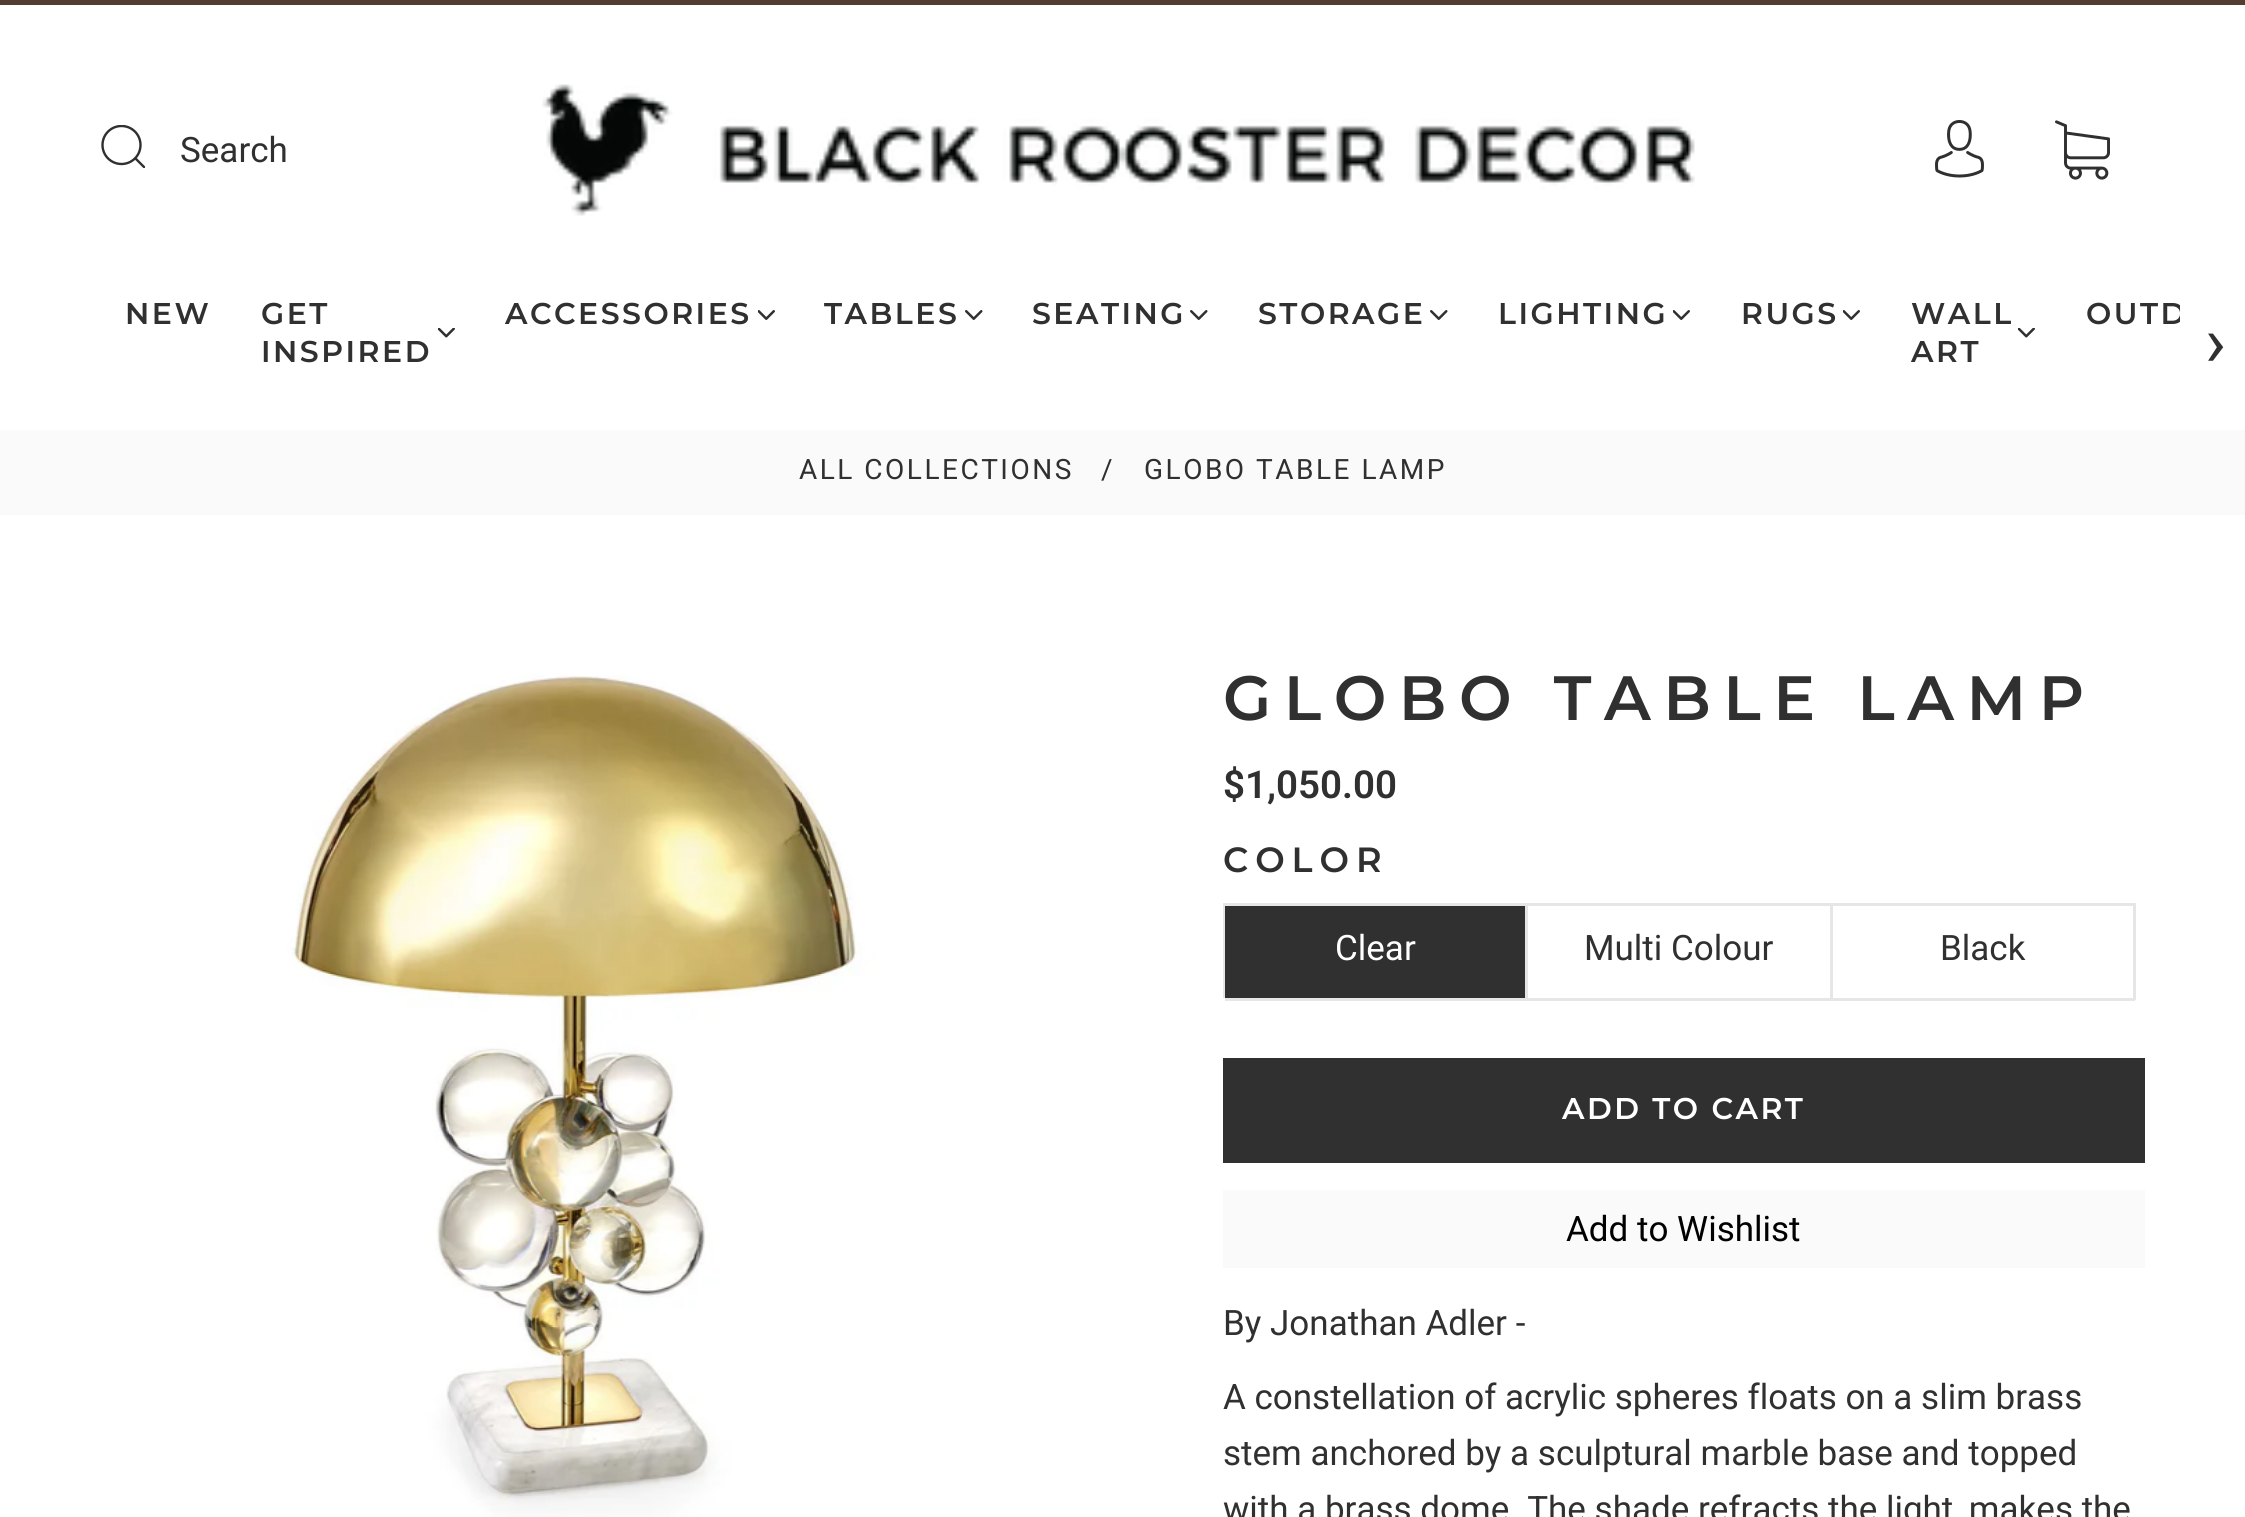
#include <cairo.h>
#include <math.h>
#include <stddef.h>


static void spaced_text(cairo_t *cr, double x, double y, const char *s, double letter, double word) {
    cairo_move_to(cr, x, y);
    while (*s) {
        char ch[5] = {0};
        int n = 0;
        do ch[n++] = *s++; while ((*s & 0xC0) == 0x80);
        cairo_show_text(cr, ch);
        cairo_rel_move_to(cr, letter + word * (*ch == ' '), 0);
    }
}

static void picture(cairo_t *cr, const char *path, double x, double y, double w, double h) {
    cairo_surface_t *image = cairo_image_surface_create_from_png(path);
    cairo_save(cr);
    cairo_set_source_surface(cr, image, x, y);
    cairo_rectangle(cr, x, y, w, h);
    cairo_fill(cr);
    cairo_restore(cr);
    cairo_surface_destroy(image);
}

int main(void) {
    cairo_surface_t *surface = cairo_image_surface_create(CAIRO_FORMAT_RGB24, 2245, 1517);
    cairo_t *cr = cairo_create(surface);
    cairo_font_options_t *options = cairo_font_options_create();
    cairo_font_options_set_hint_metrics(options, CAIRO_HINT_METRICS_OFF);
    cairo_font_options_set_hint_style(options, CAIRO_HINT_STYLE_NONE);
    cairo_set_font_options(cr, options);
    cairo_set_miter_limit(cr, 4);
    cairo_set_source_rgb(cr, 1, 1, 1);
    cairo_paint(cr);
    cairo_set_source_rgb(cr, 0.325, 0.235, 0.196);
    cairo_rectangle(cr, 0, 0, 2245, 5);
    cairo_fill(cr);
    cairo_save(cr);
    cairo_rectangle(cr, 100, 125, 45, 43);
    cairo_clip(cr);
    cairo_arc(cr, 121.5, 145, 19, 0, 2 * M_PI);
    cairo_set_source_rgb(cr, 0.188, 0.188, 0.188);
    cairo_set_line_width(cr, 2.4);
    cairo_stroke(cr);
    cairo_new_path(cr);
    cairo_move_to(cr, 135, 158);
    cairo_line_to(cr, 148.5, 171.5);
    cairo_stroke(cr);
    cairo_restore(cr);
    cairo_select_font_face(cr, "Roboto", CAIRO_FONT_SLANT_NORMAL, CAIRO_FONT_WEIGHT_NORMAL);
    cairo_set_font_size(cr, 35);
    cairo_set_source_rgb(cr, 0.188, 0.188, 0.188);
    cairo_move_to(cr, 180, 162);
    cairo_show_text(cr, "Search");
    picture(cr, "img1.png", 542, 84, 1153, 132);
    picture(cr, "img2.png", 1935, 120, 49, 58);
    picture(cr, "img3.png", 2055, 120, 55, 60);
    cairo_select_font_face(cr, "Montserrat SemiBold", CAIRO_FONT_SLANT_NORMAL, CAIRO_FONT_WEIGHT_NORMAL);
    cairo_set_font_size(cr, 30);
    spaced_text(cr, 125, 324, "NEW", 2.5, 0);
    spaced_text(cr, 261, 324, "GET", 2.5, 0);
    picture(cr, "img4.png", 438, 328, 17, 10);
    spaced_text(cr, 261, 362, "INSPIRED", 2.5, 0);
    spaced_text(cr, 505, 324, "ACCESSORIES", 2.5, 0);
    picture(cr, "img5.png", 758, 310, 17, 10);
    spaced_text(cr, 824, 324, "TABLES", 2.5, 0);
    picture(cr, "img6.png", 965, 310, 18, 10);
    spaced_text(cr, 1032, 324, "SEATING", 2.5, 0);
    picture(cr, "img6.png", 1190, 310, 18, 10);
    spaced_text(cr, 1258, 324, "STORAGE", 2.5, 0);
    picture(cr, "img6.png", 1430, 310, 18, 10);
    spaced_text(cr, 1498, 324, "LIGHTING", 2.5, 0);
    picture(cr, "img5.png", 1673, 310, 17, 10);
    spaced_text(cr, 1741, 324, "RUGS", 2.5, 0);
    picture(cr, "img5.png", 1843, 310, 17, 10);
    spaced_text(cr, 1911, 324, "WALL", 2.5, 0);
    picture(cr, "img4.png", 2018, 328, 17, 10);
    spaced_text(cr, 1911, 362, "ART", 2.5, 0);
    spaced_text(cr, 2086, 324, "OUTD", 2.5, 0);
    cairo_set_source_rgb(cr, 1, 1, 1);
    cairo_rectangle(cr, 2180, 305, 4, 17);
    cairo_fill(cr);
    cairo_select_font_face(cr, "Roboto", CAIRO_FONT_SLANT_NORMAL, CAIRO_FONT_WEIGHT_NORMAL);
    cairo_set_font_size(cr, 70);
    cairo_set_source_rgb(cr, 0.188, 0.188, 0.188);
    cairo_move_to(cr, 2205, 366);
    cairo_show_text(cr, "›");
    cairo_set_source_rgb(cr, 0.98, 0.98, 0.98);
    cairo_rectangle(cr, 0, 430, 2245, 85);
    cairo_fill(cr);
    cairo_set_font_size(cr, 28);
    cairo_set_source_rgb(cr, 0.188, 0.188, 0.188);
    spaced_text(cr, 799, 479, "ALL COLLECTIONS", 2.5, 0);
    spaced_text(cr, 1101, 479, "/", 2.5, 0);
    spaced_text(cr, 1144, 479, "GLOBO TABLE LAMP", 2.5, 0);
    picture(cr, "img7.png", 98, 620, 927, 897);
    cairo_select_font_face(cr, "Montserrat SemiBold", CAIRO_FONT_SLANT_NORMAL, CAIRO_FONT_WEIGHT_NORMAL);
    cairo_set_font_size(cr, 62.5);
    spaced_text(cr, 1223, 720, "GLOBO TABLE LAMP", 12.5, 0);
    cairo_select_font_face(cr, "Roboto SemiBold", CAIRO_FONT_SLANT_NORMAL, CAIRO_FONT_WEIGHT_NORMAL);
    cairo_set_font_size(cr, 38.5);
    cairo_move_to(cr, 1223, 798);
    cairo_show_text(cr, "$1,050.00");
    cairo_select_font_face(cr, "Montserrat SemiBold", CAIRO_FONT_SLANT_NORMAL, CAIRO_FONT_WEIGHT_NORMAL);
    cairo_set_font_size(cr, 35);
    spaced_text(cr, 1223, 872, "COLOR", 7, 0);
    cairo_set_source_rgb(cr, 0.902, 0.902, 0.902);
    cairo_rectangle(cr, 1223, 903, 2, 95);
    cairo_fill(cr);
    cairo_set_source_rgb(cr, 0.188, 0.188, 0.188);
    cairo_rectangle(cr, 1225, 906, 300, 92);
    cairo_fill(cr);
    cairo_set_source_rgb(cr, 0.902, 0.902, 0.902);
    cairo_rectangle(cr, 1225, 903, 910, 3);
    cairo_fill(cr);
    cairo_rectangle(cr, 1525, 903, 3, 97);
    cairo_fill(cr);
    cairo_rectangle(cr, 1225, 998, 303, 3);
    cairo_fill(cr);
    cairo_select_font_face(cr, "Roboto", CAIRO_FONT_SLANT_NORMAL, CAIRO_FONT_WEIGHT_NORMAL);
    cairo_set_source_rgb(cr, 1, 1, 1);
    cairo_move_to(cr, 1335, 960);
    cairo_show_text(cr, "Clear");
    cairo_set_source_rgb(cr, 0.902, 0.902, 0.902);
    cairo_rectangle(cr, 1830, 903, 3, 97);
    cairo_fill(cr);
    cairo_rectangle(cr, 1528, 998, 305, 3);
    cairo_fill(cr);
    cairo_set_source_rgb(cr, 0.188, 0.188, 0.188);
    cairo_move_to(cr, 1584, 960);
    cairo_show_text(cr, "Multi Colour");
    cairo_set_source_rgb(cr, 0.902, 0.902, 0.902);
    cairo_rectangle(cr, 2133, 903, 3, 97);
    cairo_fill(cr);
    cairo_rectangle(cr, 1833, 998, 302, 3);
    cairo_fill(cr);
    cairo_set_source_rgb(cr, 0.188, 0.188, 0.188);
    cairo_move_to(cr, 1940, 960);
    cairo_show_text(cr, "Black");
    cairo_rectangle(cr, 1223, 1058, 922, 105);
    cairo_fill(cr);
    cairo_select_font_face(cr, "Montserrat SemiBold", CAIRO_FONT_SLANT_NORMAL, CAIRO_FONT_WEIGHT_NORMAL);
    cairo_set_font_size(cr, 30);
    cairo_set_source_rgb(cr, 1, 1, 1);
    spaced_text(cr, 1562, 1119, "ADD TO CART", 2.5, 0);
    cairo_set_source_rgb(cr, 0.98, 0.98, 0.98);
    cairo_rectangle(cr, 1223, 1190, 922, 78);
    cairo_fill(cr);
    cairo_select_font_face(cr, "Roboto", CAIRO_FONT_SLANT_NORMAL, CAIRO_FONT_WEIGHT_NORMAL);
    cairo_set_font_size(cr, 35);
    cairo_set_source_rgb(cr, 0, 0, 0);
    cairo_move_to(cr, 1566, 1241);
    cairo_show_text(cr, "Add to Wishlist");
    cairo_set_source_rgb(cr, 0.188, 0.188, 0.188);
    cairo_move_to(cr, 1223, 1335);
    cairo_show_text(cr, "By Jonathan Adler -");
    cairo_move_to(cr, 1223, 1409);
    cairo_show_text(cr, "A constellation of acrylic spheres floats on a slim brass");
    cairo_move_to(cr, 1223, 1465);
    cairo_show_text(cr, "stem anchored by a sculptural marble base and topped");
    cairo_move_to(cr, 1223, 1521);
    cairo_show_text(cr, "with a brass dome. The shade refracts the light, makes the");
    cairo_surface_write_to_png(surface, "page.png");
    cairo_font_options_destroy(options);
    cairo_destroy(cr);
    cairo_surface_destroy(surface);
    return 0;
}
